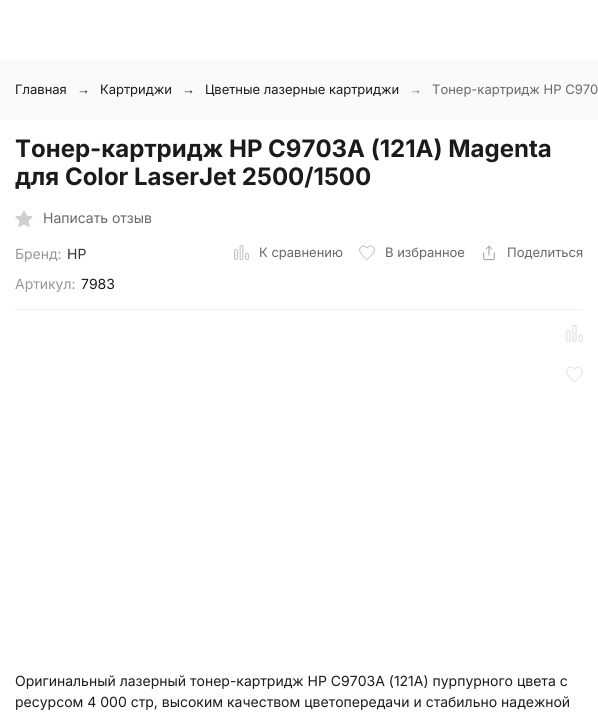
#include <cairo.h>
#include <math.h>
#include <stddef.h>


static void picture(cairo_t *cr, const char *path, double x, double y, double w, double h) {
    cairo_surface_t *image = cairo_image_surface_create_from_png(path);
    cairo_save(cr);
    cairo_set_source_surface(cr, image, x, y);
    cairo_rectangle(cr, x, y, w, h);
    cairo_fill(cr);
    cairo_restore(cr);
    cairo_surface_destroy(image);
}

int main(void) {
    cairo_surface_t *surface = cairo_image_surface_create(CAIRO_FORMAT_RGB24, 598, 720);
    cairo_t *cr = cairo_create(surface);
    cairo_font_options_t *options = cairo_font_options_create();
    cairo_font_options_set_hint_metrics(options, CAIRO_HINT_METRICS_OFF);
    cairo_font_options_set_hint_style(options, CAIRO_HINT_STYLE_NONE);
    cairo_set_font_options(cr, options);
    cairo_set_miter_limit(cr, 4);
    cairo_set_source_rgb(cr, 1, 1, 1);
    cairo_paint(cr);
    cairo_set_source_rgb(cr, 0.98, 0.98, 0.98);
    cairo_rectangle(cr, 0, 60, 598, 60);
    cairo_fill(cr);
    cairo_select_font_face(cr, "Inter", CAIRO_FONT_SLANT_NORMAL, CAIRO_FONT_WEIGHT_NORMAL);
    cairo_set_font_size(cr, 13);
    cairo_set_source_rgb(cr, 0.106, 0.106, 0.106);
    cairo_move_to(cr, 15, 94);
    cairo_show_text(cr, "Главная");
    cairo_select_font_face(cr, "Liberation Sans", CAIRO_FONT_SLANT_NORMAL, CAIRO_FONT_WEIGHT_NORMAL);
    cairo_move_to(cr, 77, 94);
    cairo_show_text(cr, "→");
    cairo_select_font_face(cr, "Inter", CAIRO_FONT_SLANT_NORMAL, CAIRO_FONT_WEIGHT_NORMAL);
    cairo_move_to(cr, 100, 94);
    cairo_show_text(cr, "Картриджи");
    cairo_select_font_face(cr, "Liberation Sans", CAIRO_FONT_SLANT_NORMAL, CAIRO_FONT_WEIGHT_NORMAL);
    cairo_move_to(cr, 182, 94);
    cairo_show_text(cr, "→");
    cairo_select_font_face(cr, "Inter", CAIRO_FONT_SLANT_NORMAL, CAIRO_FONT_WEIGHT_NORMAL);
    cairo_move_to(cr, 205, 94);
    cairo_show_text(cr, "Цветные лазерные картриджи");
    cairo_select_font_face(cr, "Liberation Sans", CAIRO_FONT_SLANT_NORMAL, CAIRO_FONT_WEIGHT_NORMAL);
    cairo_set_source_rgb(cr, 0.408, 0.408, 0.408);
    cairo_move_to(cr, 409, 94);
    cairo_show_text(cr, "→");
    cairo_select_font_face(cr, "Inter", CAIRO_FONT_SLANT_NORMAL, CAIRO_FONT_WEIGHT_NORMAL);
    cairo_move_to(cr, 432, 94);
    cairo_show_text(cr, "Тонер-картридж HP C970");
    cairo_set_source_rgb(cr, 0.949, 0.949, 0.949);
    cairo_rectangle(cr, 15, 309, 568, 1);
    cairo_fill(cr);
    cairo_select_font_face(cr, "Inter", CAIRO_FONT_SLANT_NORMAL, CAIRO_FONT_WEIGHT_BOLD);
    cairo_set_font_size(cr, 24);
    cairo_set_source_rgb(cr, 0.106, 0.106, 0.106);
    cairo_move_to(cr, 15, 157);
    cairo_show_text(cr, "Тонер-картридж HP C9703A (121A) Magenta");
    cairo_move_to(cr, 15, 185);
    cairo_show_text(cr, "для Color LaserJet 2500/1500");
    picture(cr, "img1.png", 15, 210, 18, 17);
    cairo_select_font_face(cr, "Inter", CAIRO_FONT_SLANT_NORMAL, CAIRO_FONT_WEIGHT_NORMAL);
    cairo_set_font_size(cr, 14);
    cairo_set_source_rgb(cr, 0.408, 0.408, 0.408);
    cairo_move_to(cr, 43, 223);
    cairo_show_text(cr, "Написать отзыв");
    cairo_set_source_rgb(cr, 0.592, 0.592, 0.592);
    cairo_move_to(cr, 15, 259);
    cairo_show_text(cr, "Бренд:");
    cairo_set_source_rgb(cr, 0.2, 0.2, 0.2);
    cairo_move_to(cr, 67, 259);
    cairo_show_text(cr, "HP");
    picture(cr, "img2.png", 234, 245, 15, 15);
    cairo_set_font_size(cr, 13);
    cairo_set_source_rgb(cr, 0.408, 0.408, 0.408);
    cairo_move_to(cr, 259, 257);
    cairo_show_text(cr, "К сравнению");
    picture(cr, "img3.png", 359, 245, 16, 15);
    cairo_move_to(cr, 385, 257);
    cairo_show_text(cr, "В избранное");
    picture(cr, "img4.png", 483, 246, 12, 15);
    cairo_move_to(cr, 507, 257);
    cairo_show_text(cr, "Поделиться");
    cairo_set_font_size(cr, 14);
    cairo_set_source_rgb(cr, 0.592, 0.592, 0.592);
    cairo_move_to(cr, 15, 289);
    cairo_show_text(cr, "Артикул:");
    cairo_set_source_rgb(cr, 0.106, 0.106, 0.106);
    cairo_move_to(cr, 81, 289);
    cairo_show_text(cr, "7983");
    picture(cr, "img5.png", 566, 325, 17, 17);
    picture(cr, "img6.png", 566, 366, 17, 17);
    cairo_move_to(cr, 15, 686);
    cairo_show_text(cr, "Оригинальный лазерный тонер-картридж HP C9703A (121A) пурпурного цвета с");
    cairo_move_to(cr, 15, 707);
    cairo_show_text(cr, "ресурсом 4 000 стр, высоким качеством цветопередачи и стабильно надежной");
    cairo_surface_write_to_png(surface, "page.png");
    cairo_font_options_destroy(options);
    cairo_destroy(cr);
    cairo_surface_destroy(surface);
    return 0;
}
